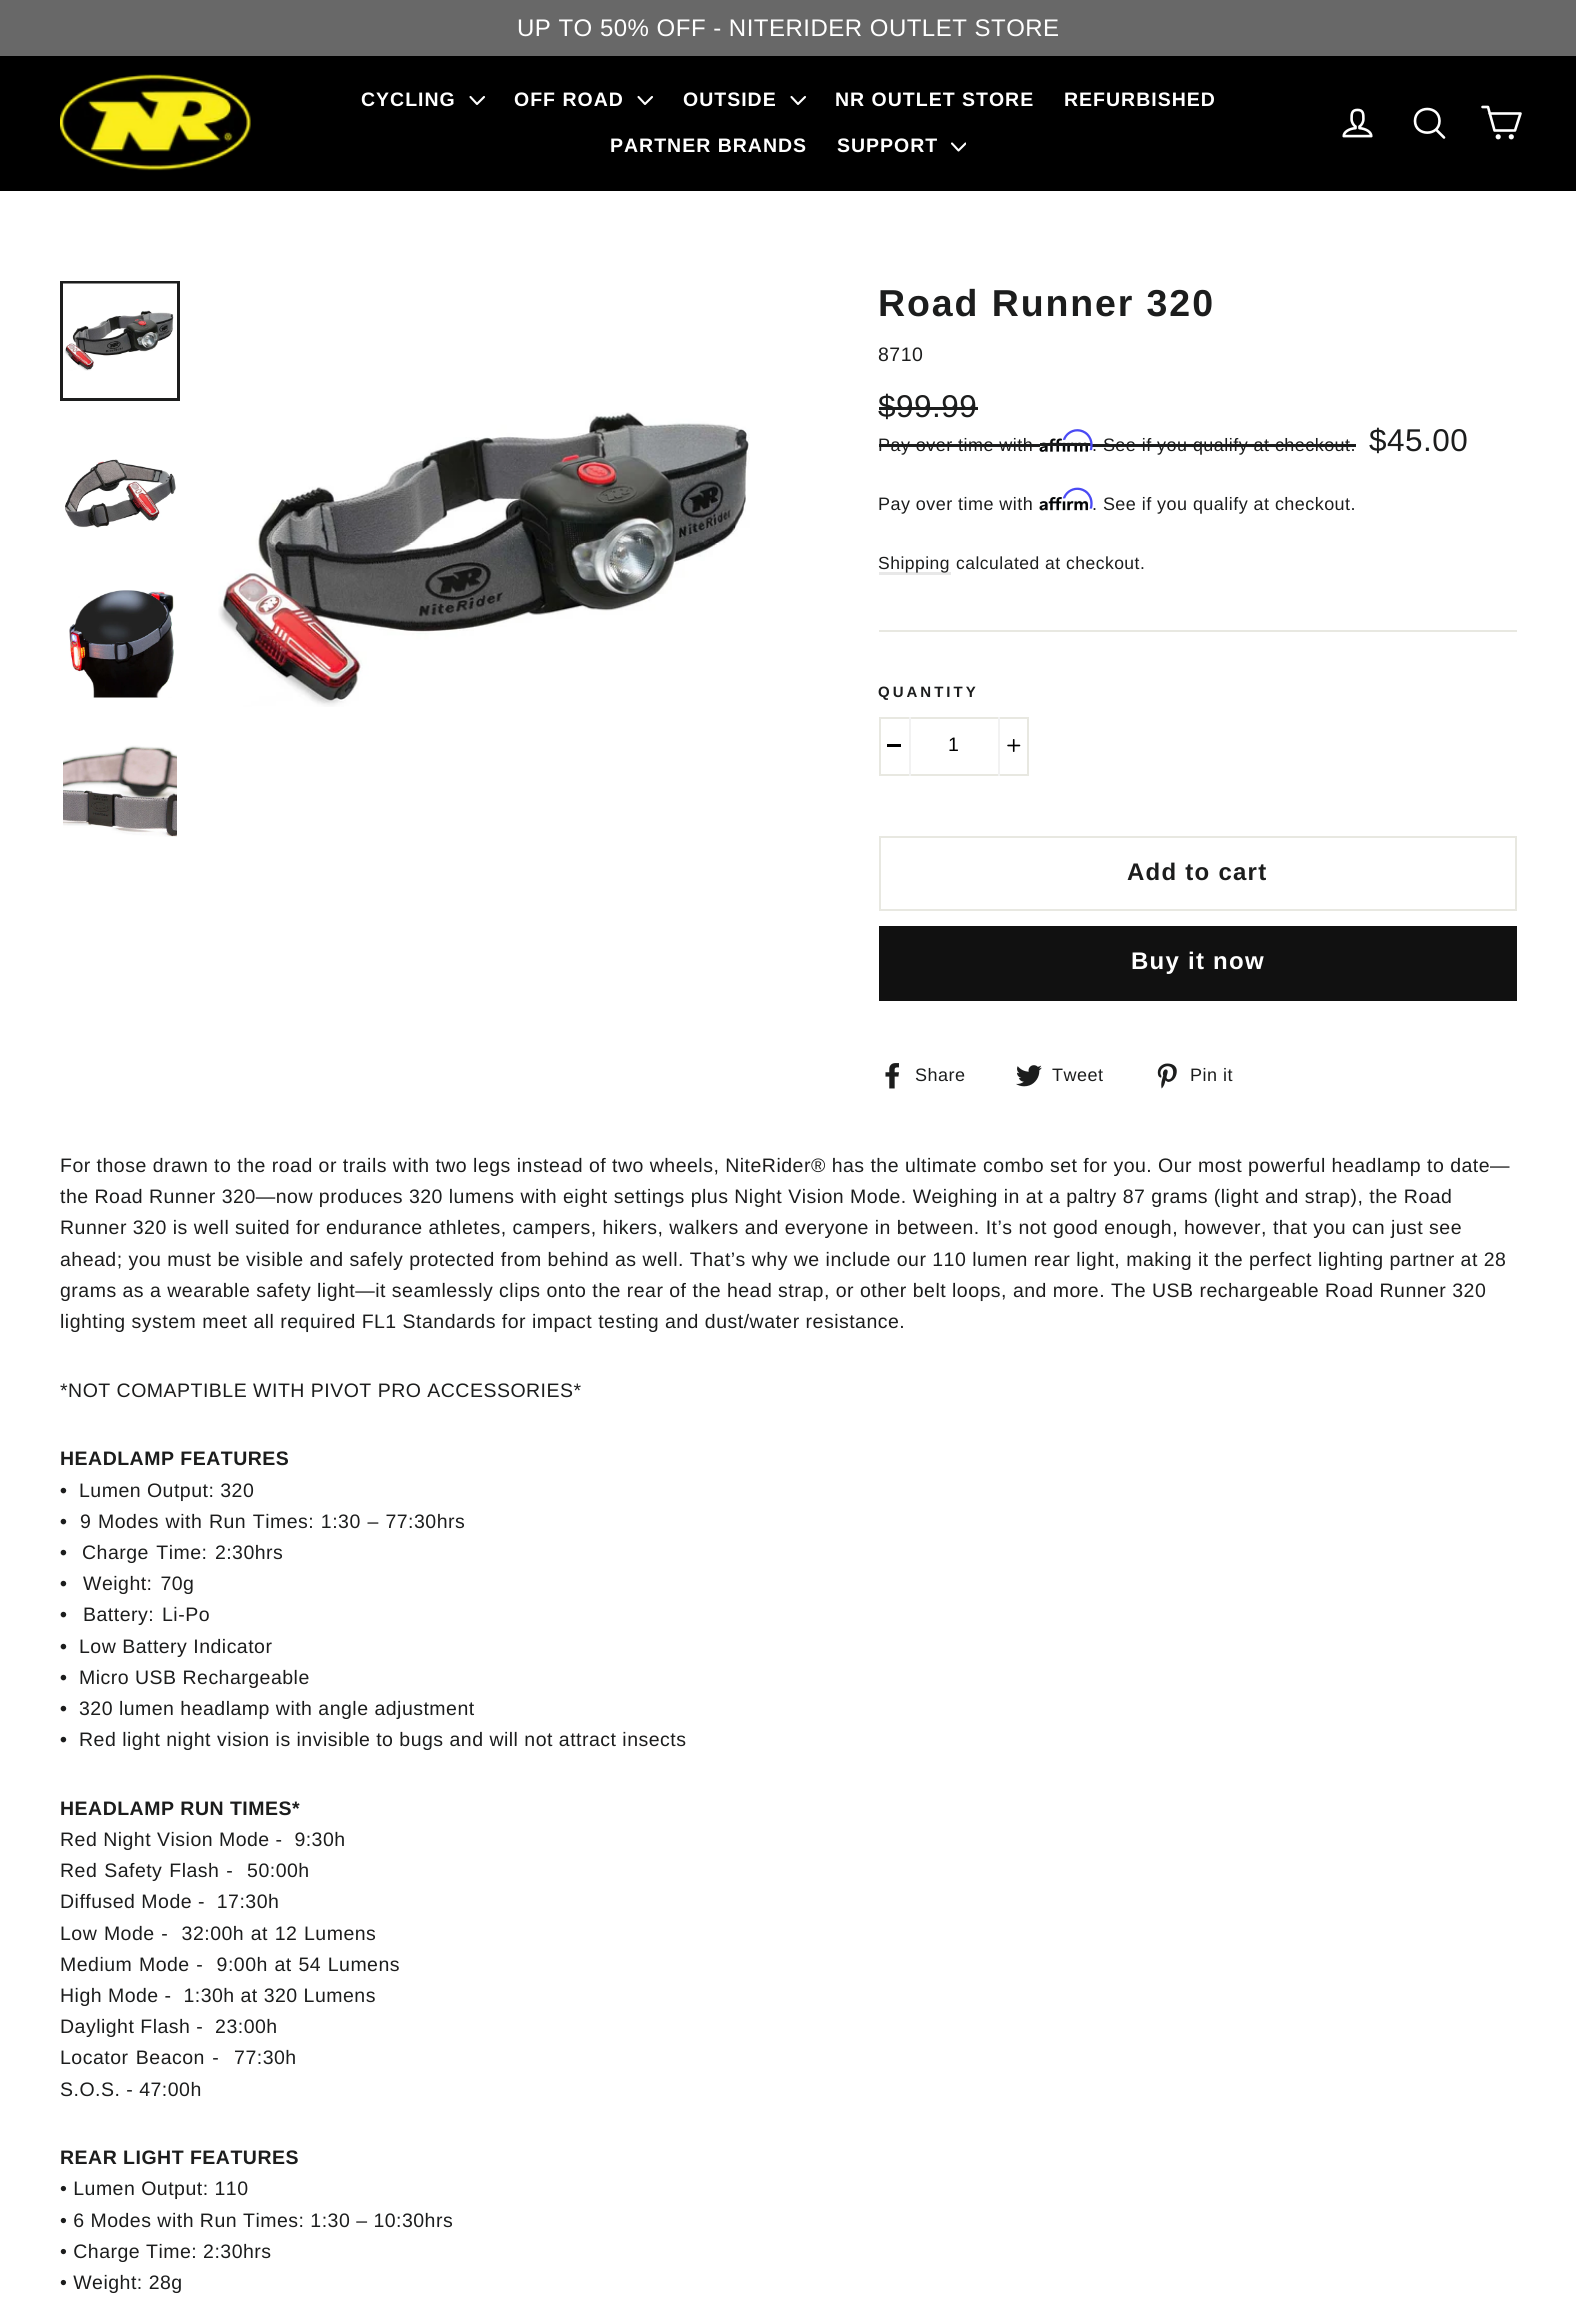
#include <cairo.h>
#include <math.h>
#include <stddef.h>


static void spaced_text(cairo_t *cr, double x, double y, const char *s, double letter, double word) {
    cairo_move_to(cr, x, y);
    while (*s) {
        char ch[5] = {0};
        int n = 0;
        do ch[n++] = *s++; while ((*s & 0xC0) == 0x80);
        cairo_show_text(cr, ch);
        cairo_rel_move_to(cr, letter + word * (*ch == ' '), 0);
    }
}

static void picture(cairo_t *cr, const char *path, double x, double y, double w, double h) {
    cairo_surface_t *image = cairo_image_surface_create_from_png(path);
    cairo_save(cr);
    cairo_set_source_surface(cr, image, x, y);
    cairo_rectangle(cr, x, y, w, h);
    cairo_fill(cr);
    cairo_restore(cr);
    cairo_surface_destroy(image);
}

int main(void) {
    cairo_surface_t *surface = cairo_image_surface_create(CAIRO_FORMAT_RGB24, 1576, 2315);
    cairo_t *cr = cairo_create(surface);
    cairo_font_options_t *options = cairo_font_options_create();
    cairo_font_options_set_hint_metrics(options, CAIRO_HINT_METRICS_OFF);
    cairo_font_options_set_hint_style(options, CAIRO_HINT_STYLE_NONE);
    cairo_set_font_options(cr, options);
    cairo_set_miter_limit(cr, 4);
    cairo_set_source_rgb(cr, 1, 1, 1);
    cairo_paint(cr);
    cairo_set_source_rgb(cr, 0.408, 0.408, 0.408);
    cairo_rectangle(cr, 0, 0, 1576, 56);
    cairo_fill(cr);
    cairo_select_font_face(cr, "Liberation Sans", CAIRO_FONT_SLANT_NORMAL, CAIRO_FONT_WEIGHT_NORMAL);
    cairo_set_font_size(cr, 24);
    cairo_set_source_rgb(cr, 1, 1, 1);
    spaced_text(cr, 517, 36, "UP TO 50% OFF - NITERIDER OUTLET STORE", 0.49, 0);
    cairo_set_source_rgb(cr, 0, 0, 0);
    cairo_rectangle(cr, 0, 56, 1576, 135);
    cairo_fill(cr);
    picture(cr, "img1.png", 60, 74, 191, 97);
    cairo_select_font_face(cr, "Liberation Sans", CAIRO_FONT_SLANT_NORMAL, CAIRO_FONT_WEIGHT_BOLD);
    cairo_set_font_size(cr, 19.5);
    cairo_set_source_rgb(cr, 1, 1, 1);
    spaced_text(cr, 361, 106, "CYCLING", 1, 0);
    cairo_new_path(cr);
    cairo_move_to(cr, 470.5, 97);
    cairo_line_to(cr, 477, 104);
    cairo_line_to(cr, 484, 97);
    cairo_set_line_width(cr, 2.1);
    cairo_set_line_cap(cr, CAIRO_LINE_CAP_ROUND);
    cairo_set_line_join(cr, CAIRO_LINE_JOIN_ROUND);
    cairo_stroke(cr);
    spaced_text(cr, 514, 106, "OFF ROAD", 1, 0);
    cairo_new_path(cr);
    cairo_move_to(cr, 638.5, 97);
    cairo_line_to(cr, 645, 104);
    cairo_line_to(cr, 652, 97);
    cairo_stroke(cr);
    spaced_text(cr, 683, 106, "OUTSIDE", 1, 0);
    cairo_new_path(cr);
    cairo_move_to(cr, 791.5, 97);
    cairo_line_to(cr, 798, 104);
    cairo_line_to(cr, 805, 97);
    cairo_stroke(cr);
    spaced_text(cr, 835, 106, "NR OUTLET STORE", 1, 0);
    spaced_text(cr, 1064, 106, "REFURBISHED", 1, 0);
    spaced_text(cr, 610, 152, "PARTNER BRANDS", 1, 0);
    spaced_text(cr, 837, 152, "SUPPORT", 1, 0);
    cairo_save(cr);
    cairo_rectangle(cr, 951, 140, 15, 15);
    cairo_clip(cr);
    cairo_new_path(cr);
    cairo_move_to(cr, 952, 143.5);
    cairo_line_to(cr, 958.5, 150.5);
    cairo_line_to(cr, 965.5, 143.5);
    cairo_stroke(cr);
    cairo_restore(cr);
    picture(cr, "img2.png", 1342, 108, 31, 30);
    cairo_new_path(cr);
    cairo_move_to(cr, 1439.5, 121);
    cairo_curve_to(cr, 1439.5, 136.5, 1415, 136.5, 1415, 121);
    cairo_curve_to(cr, 1415, 105, 1439.5, 105, 1439.5, 121);
    cairo_close_path(cr);
    cairo_move_to(cr, 1444, 137.5);
    cairo_line_to(cr, 1436, 129.5);
    cairo_set_line_width(cr, 2.6);
    cairo_stroke(cr);
    cairo_new_path(cr);
    cairo_move_to(cr, 1489.5, 113.5);
    cairo_line_to(cr, 1520.5, 113.5);
    cairo_line_to(cr, 1515, 130.5);
    cairo_line_to(cr, 1494.5, 130.5);
    cairo_line_to(cr, 1488, 107);
    cairo_line_to(cr, 1482.5, 107);
    cairo_stroke(cr);
    cairo_arc(cr, 1498.2, 136.8, 1.3, 0, 2 * M_PI);
    cairo_set_line_cap(cr, CAIRO_LINE_CAP_BUTT);
    cairo_set_line_join(cr, CAIRO_LINE_JOIN_MITER);
    cairo_stroke(cr);
    cairo_arc(cr, 1511.3, 136.8, 1.3, 0, 2 * M_PI);
    cairo_stroke(cr);
    cairo_rectangle(cr, 61.5, 282.5, 117, 117);
    cairo_set_source_rgb(cr, 0.11, 0.114, 0.114);
    cairo_set_line_width(cr, 3);
    cairo_stroke(cr);
    picture(cr, "img3.png", 63, 283, 114, 88);
    picture(cr, "img4.png", 65, 459, 111, 69);
    picture(cr, "img5.png", 69, 590, 105, 108);
    picture(cr, "img6.png", 63, 745, 114, 92);
    picture(cr, "img7.png", 218, 412, 532, 295);
    cairo_set_font_size(cr, 37.5);
    spaced_text(cr, 878, 316, "Road Runner 320", 1.9, 0);
    cairo_select_font_face(cr, "Liberation Sans", CAIRO_FONT_SLANT_NORMAL, CAIRO_FONT_WEIGHT_NORMAL);
    cairo_set_font_size(cr, 19.5);
    spaced_text(cr, 878, 361, "8710", 0.49, 0);
    cairo_set_font_size(cr, 31.5);
    spaced_text(cr, 878, 417, "$99.99", 0.49, 0);
    cairo_rectangle(cr, 879, 407, 99, 3);
    cairo_fill(cr);
    cairo_set_font_size(cr, 18);
    spaced_text(cr, 878, 451, "Pay over time with", 0.45, 0);
    cairo_rectangle(cr, 879, 444, 161, 3);
    cairo_fill(cr);
    picture(cr, "img9.png", 1039, 438, 49, 14);
    cairo_rectangle(cr, 1040, 443, 52, 3);
    cairo_fill(cr);
    cairo_rectangle(cr, 1092, 444, 264, 3);
    cairo_fill(cr);
    picture(cr, "img8.png", 1062, 429, 31, 22);
    spaced_text(cr, 1092, 451, ". See if you qualify at checkout.", 0.45, 0);
    cairo_set_font_size(cr, 31.5);
    spaced_text(cr, 1369, 451, "$45.00", 0.49, 0);
    cairo_set_font_size(cr, 18);
    spaced_text(cr, 878, 510, "Pay over time with", 0.45, 0);
    picture(cr, "img11.png", 1039, 497, 49, 14);
    picture(cr, "img10.png", 1062, 487, 31, 22);
    spaced_text(cr, 1092, 510, ". See if you qualify at checkout.", 0.45, 0);
    cairo_set_source_rgb(cr, 0.91, 0.91, 0.91);
    cairo_rectangle(cr, 879, 572, 72, 3);
    cairo_fill(cr);
    cairo_set_font_size(cr, 17.5);
    cairo_set_source_rgb(cr, 0.11, 0.114, 0.114);
    spaced_text(cr, 878, 569, "Shipping", 0.49, 0);
    spaced_text(cr, 956, 569, "calculated at checkout.", 0.49, 0);
    cairo_set_source_rgb(cr, 0.91, 0.91, 0.882);
    cairo_rectangle(cr, 879, 630, 638, 2);
    cairo_fill(cr);
    cairo_select_font_face(cr, "Liberation Sans", CAIRO_FONT_SLANT_NORMAL, CAIRO_FONT_WEIGHT_BOLD);
    cairo_set_font_size(cr, 15);
    cairo_set_source_rgb(cr, 0.11, 0.114, 0.114);
    spaced_text(cr, 878, 697, "QUANTITY", 3, 0);
    cairo_rectangle(cr, 880, 718, 148, 57);
    cairo_set_source_rgb(cr, 0.91, 0.91, 0.882);
    cairo_set_line_width(cr, 2);
    cairo_stroke(cr);
    cairo_set_source_rgb(cr, 0.949, 0.949, 0.949);
    cairo_rectangle(cr, 909, 717, 2, 59);
    cairo_fill(cr);
    cairo_set_source_rgb(cr, 0, 0, 0);
    cairo_rectangle(cr, 887, 744, 14, 3);
    cairo_fill(cr);
    cairo_select_font_face(cr, "Liberation Sans", CAIRO_FONT_SLANT_NORMAL, CAIRO_FONT_WEIGHT_NORMAL);
    cairo_set_font_size(cr, 19.5);
    spaced_text(cr, 948, 751, "1", 0.49, 0);
    cairo_set_source_rgb(cr, 0.949, 0.949, 0.949);
    cairo_rectangle(cr, 998, 717, 2, 59);
    cairo_fill(cr);
    picture(cr, "img12.png", 1007, 739, 14, 13);
    cairo_rectangle(cr, 880, 837, 636, 73);
    cairo_set_source_rgb(cr, 0.91, 0.91, 0.882);
    cairo_stroke(cr);
    cairo_select_font_face(cr, "Liberation Sans", CAIRO_FONT_SLANT_NORMAL, CAIRO_FONT_WEIGHT_BOLD);
    cairo_set_font_size(cr, 24);
    cairo_set_source_rgb(cr, 0.11, 0.114, 0.114);
    spaced_text(cr, 1127, 880, "Add to cart", 1.25, 0);
    cairo_set_source_rgb(cr, 0.067, 0.067, 0.067);
    cairo_rectangle(cr, 879, 926, 638, 75);
    cairo_fill(cr);
    cairo_set_source_rgb(cr, 1, 1, 1);
    spaced_text(cr, 1131, 969, "Buy it now", 1.25, 0);
    picture(cr, "img13.png", 885, 1063, 14, 26);
    cairo_select_font_face(cr, "Liberation Sans", CAIRO_FONT_SLANT_NORMAL, CAIRO_FONT_WEIGHT_NORMAL);
    cairo_set_font_size(cr, 18);
    cairo_set_source_rgb(cr, 0.11, 0.114, 0.114);
    spaced_text(cr, 915, 1081, "Share", 0.49, 0);
    picture(cr, "img14.png", 1016, 1065, 26, 22);
    spaced_text(cr, 1052, 1081, "Tweet", 0.49, 0);
    picture(cr, "img15.png", 1157, 1063, 20, 26);
    spaced_text(cr, 1190, 1081, "Pin it", 0.49, 0);
    cairo_set_font_size(cr, 19.5);
    spaced_text(cr, 60, 1172, "For those drawn to the road or trails with two legs instead of two wheels, NiteRider® has the ultimate combo set for you. Our most powerful headlamp to date—", 0.49, 0);
    spaced_text(cr, 60, 1203, "the Road Runner 320—now produces 320 lumens with eight settings plus Night Vision Mode. Weighing in at a paltry 87 grams (light and strap), the Road", 0.49, 0);
    spaced_text(cr, 60, 1234, "Runner 320 is well suited for endurance athletes, campers, hikers, walkers and everyone in between. It’s not good enough, however, that you can just see", 0.49, 0);
    spaced_text(cr, 60, 1266, "ahead; you must be visible and safely protected from behind as well. That’s why we include our 110 lumen rear light, making it the perfect lighting partner at 28", 0.49, 0);
    spaced_text(cr, 60, 1297, "grams as a wearable safety light—it seamlessly clips onto the rear of the head strap, or other belt loops, and more. The USB rechargeable Road Runner 320", 0.49, 0);
    spaced_text(cr, 60, 1328, "lighting system meet all required FL1 Standards for impact testing and dust/water resistance.", 0.49, 0);
    spaced_text(cr, 60, 1397, "*NOT COMAPTIBLE WITH PIVOT PRO ACCESSORIES*", 0.49, 0);
    cairo_select_font_face(cr, "Liberation Sans", CAIRO_FONT_SLANT_NORMAL, CAIRO_FONT_WEIGHT_BOLD);
    spaced_text(cr, 60, 1465, "HEADLAMP FEATURES", 0.49, 0);
    spaced_text(cr, 60, 1497, "•", 0.49, 0);
    cairo_select_font_face(cr, "Liberation Sans", CAIRO_FONT_SLANT_NORMAL, CAIRO_FONT_WEIGHT_NORMAL);
    spaced_text(cr, 79, 1497, "Lumen Output: 320", 0.49, 0);
    cairo_select_font_face(cr, "Liberation Sans", CAIRO_FONT_SLANT_NORMAL, CAIRO_FONT_WEIGHT_BOLD);
    spaced_text(cr, 60, 1528, "•", 0.49, 0);
    cairo_select_font_face(cr, "Liberation Sans", CAIRO_FONT_SLANT_NORMAL, CAIRO_FONT_WEIGHT_NORMAL);
    spaced_text(cr, 80, 1528, "9 Modes with Run Times: 1:30 – 77:30hrs", 0.49, 0.75);
    cairo_select_font_face(cr, "Liberation Sans", CAIRO_FONT_SLANT_NORMAL, CAIRO_FONT_WEIGHT_BOLD);
    spaced_text(cr, 60, 1559, "•", 0.49, 0);
    cairo_select_font_face(cr, "Liberation Sans", CAIRO_FONT_SLANT_NORMAL, CAIRO_FONT_WEIGHT_NORMAL);
    spaced_text(cr, 82, 1559, "Charge Time: 2:30hrs", 0.49, 1.5);
    cairo_select_font_face(cr, "Liberation Sans", CAIRO_FONT_SLANT_NORMAL, CAIRO_FONT_WEIGHT_BOLD);
    spaced_text(cr, 60, 1590, "•", 0.49, 0);
    cairo_select_font_face(cr, "Liberation Sans", CAIRO_FONT_SLANT_NORMAL, CAIRO_FONT_WEIGHT_NORMAL);
    spaced_text(cr, 83, 1590, "Weight: 70g", 0.49, 2);
    cairo_select_font_face(cr, "Liberation Sans", CAIRO_FONT_SLANT_NORMAL, CAIRO_FONT_WEIGHT_BOLD);
    spaced_text(cr, 60, 1621, "•", 0.49, 0);
    cairo_select_font_face(cr, "Liberation Sans", CAIRO_FONT_SLANT_NORMAL, CAIRO_FONT_WEIGHT_NORMAL);
    spaced_text(cr, 83, 1621, "Battery: Li-Po", 0.49, 2);
    cairo_select_font_face(cr, "Liberation Sans", CAIRO_FONT_SLANT_NORMAL, CAIRO_FONT_WEIGHT_BOLD);
    spaced_text(cr, 60, 1653, "•", 0.49, 0);
    cairo_select_font_face(cr, "Liberation Sans", CAIRO_FONT_SLANT_NORMAL, CAIRO_FONT_WEIGHT_NORMAL);
    spaced_text(cr, 79, 1653, "Low Battery Indicator", 0.49, 0);
    cairo_select_font_face(cr, "Liberation Sans", CAIRO_FONT_SLANT_NORMAL, CAIRO_FONT_WEIGHT_BOLD);
    spaced_text(cr, 60, 1684, "•", 0.49, 0);
    cairo_select_font_face(cr, "Liberation Sans", CAIRO_FONT_SLANT_NORMAL, CAIRO_FONT_WEIGHT_NORMAL);
    spaced_text(cr, 79, 1684, "Micro USB Rechargeable", 0.49, 0);
    cairo_select_font_face(cr, "Liberation Sans", CAIRO_FONT_SLANT_NORMAL, CAIRO_FONT_WEIGHT_BOLD);
    spaced_text(cr, 60, 1715, "•", 0.49, 0);
    cairo_select_font_face(cr, "Liberation Sans", CAIRO_FONT_SLANT_NORMAL, CAIRO_FONT_WEIGHT_NORMAL);
    spaced_text(cr, 79, 1715, "320 lumen headlamp with angle adjustment", 0.49, 0);
    cairo_select_font_face(cr, "Liberation Sans", CAIRO_FONT_SLANT_NORMAL, CAIRO_FONT_WEIGHT_BOLD);
    spaced_text(cr, 60, 1746, "•", 0.49, 0);
    cairo_select_font_face(cr, "Liberation Sans", CAIRO_FONT_SLANT_NORMAL, CAIRO_FONT_WEIGHT_NORMAL);
    spaced_text(cr, 79, 1746, "Red light night vision is invisible to bugs and will not attract insects", 0.49, 0);
    cairo_select_font_face(cr, "Liberation Sans", CAIRO_FONT_SLANT_NORMAL, CAIRO_FONT_WEIGHT_BOLD);
    spaced_text(cr, 60, 1815, "HEADLAMP RUN TIMES*", 0.49, 0);
    cairo_select_font_face(cr, "Liberation Sans", CAIRO_FONT_SLANT_NORMAL, CAIRO_FONT_WEIGHT_NORMAL);
    spaced_text(cr, 60, 1846, "Red Night Vision Mode -  9:30h", 0.49, 0);
    spaced_text(cr, 60, 1877, "Red Safety Flash -  50:00h", 0.49, 1);
    spaced_text(cr, 60, 1908, "Diffused Mode -  17:30h", 0.49, 0);
    spaced_text(cr, 60, 1940, "Low Mode -  32:00h at 12 Lumens", 0.49, 0.75);
    spaced_text(cr, 60, 1971, "Medium Mode -  9:00h at 54 Lumens", 0.49, 0.75);
    spaced_text(cr, 60, 2002, "High Mode -  1:30h at 320 Lumens", 0.49, 0);
    spaced_text(cr, 60, 2033, "Daylight Flash -  23:00h", 0.49, 0);
    spaced_text(cr, 60, 2064, "Locator Beacon -  77:30h", 0.49, 1.5);
    spaced_text(cr, 60, 2096, "S.O.S. - 47:00h", 0.49, 0);
    cairo_select_font_face(cr, "Liberation Sans", CAIRO_FONT_SLANT_NORMAL, CAIRO_FONT_WEIGHT_BOLD);
    spaced_text(cr, 60, 2164, "REAR LIGHT FEATURES", 0.49, 0);
    cairo_select_font_face(cr, "Liberation Sans", CAIRO_FONT_SLANT_NORMAL, CAIRO_FONT_WEIGHT_NORMAL);
    spaced_text(cr, 60, 2195, "• Lumen Output: 110", 0.49, 0);
    spaced_text(cr, 60, 2227, "• 6 Modes with Run Times: 1:30 – 10:30hrs", 0.49, 0);
    spaced_text(cr, 60, 2258, "• Charge Time: 2:30hrs", 0.49, 0);
    spaced_text(cr, 60, 2289, "• Weight: 28g", 0.49, 0);
    cairo_surface_write_to_png(surface, "page.png");
    cairo_font_options_destroy(options);
    cairo_destroy(cr);
    cairo_surface_destroy(surface);
    return 0;
}
